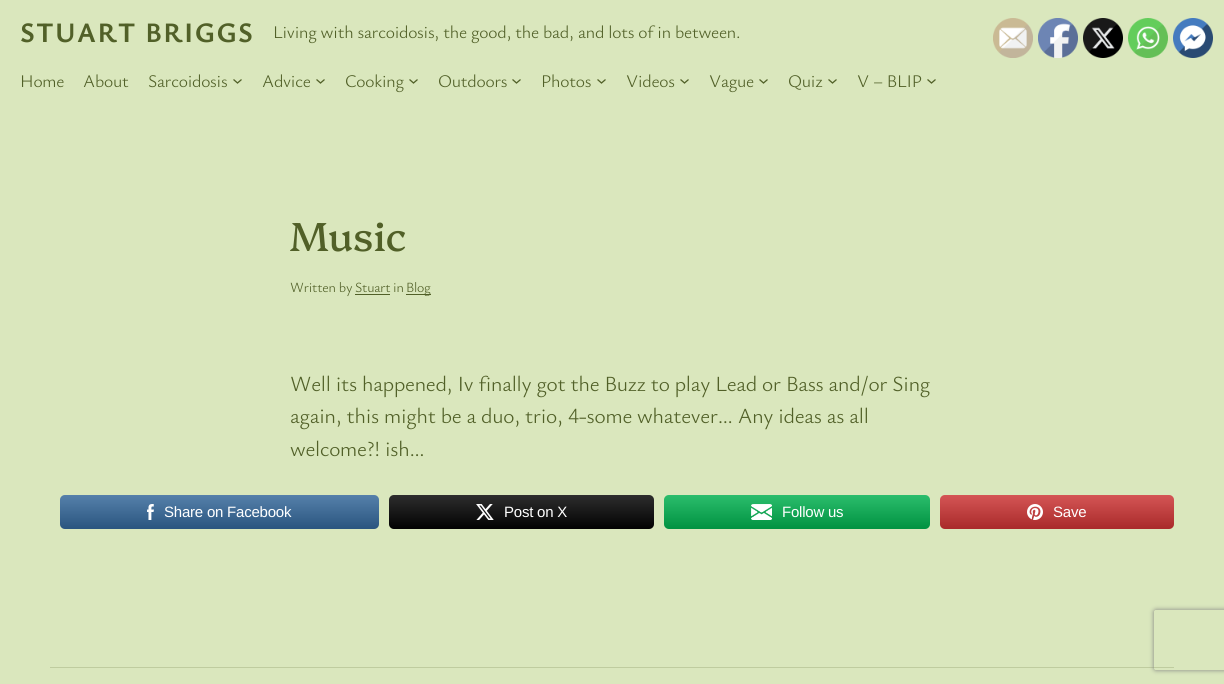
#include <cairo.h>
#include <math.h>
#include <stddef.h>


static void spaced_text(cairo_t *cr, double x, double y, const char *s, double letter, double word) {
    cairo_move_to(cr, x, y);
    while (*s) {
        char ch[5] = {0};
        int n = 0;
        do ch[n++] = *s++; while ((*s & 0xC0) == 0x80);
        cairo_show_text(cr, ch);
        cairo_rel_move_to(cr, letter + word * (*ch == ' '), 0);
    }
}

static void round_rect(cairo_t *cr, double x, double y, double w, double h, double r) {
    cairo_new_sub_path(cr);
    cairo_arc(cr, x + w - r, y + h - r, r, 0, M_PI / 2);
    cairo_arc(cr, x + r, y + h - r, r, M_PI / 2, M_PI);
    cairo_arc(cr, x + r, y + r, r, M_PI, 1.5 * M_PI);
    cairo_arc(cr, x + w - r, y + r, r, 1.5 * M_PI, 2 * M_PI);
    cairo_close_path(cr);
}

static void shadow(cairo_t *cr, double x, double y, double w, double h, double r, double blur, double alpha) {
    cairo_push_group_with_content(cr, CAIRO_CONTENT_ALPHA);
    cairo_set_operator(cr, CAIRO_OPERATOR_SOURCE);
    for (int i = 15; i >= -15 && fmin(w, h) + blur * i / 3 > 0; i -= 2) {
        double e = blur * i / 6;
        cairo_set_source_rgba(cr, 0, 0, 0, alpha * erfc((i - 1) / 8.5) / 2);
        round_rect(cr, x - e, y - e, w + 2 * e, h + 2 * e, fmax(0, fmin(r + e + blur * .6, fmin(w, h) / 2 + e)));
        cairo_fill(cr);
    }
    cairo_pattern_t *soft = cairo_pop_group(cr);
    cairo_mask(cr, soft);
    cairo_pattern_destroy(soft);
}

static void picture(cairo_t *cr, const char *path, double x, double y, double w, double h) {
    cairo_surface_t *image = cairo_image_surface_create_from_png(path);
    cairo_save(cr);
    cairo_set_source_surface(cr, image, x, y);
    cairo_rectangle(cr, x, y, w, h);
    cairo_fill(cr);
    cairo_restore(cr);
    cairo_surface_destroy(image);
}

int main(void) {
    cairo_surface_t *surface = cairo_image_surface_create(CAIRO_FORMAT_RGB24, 1224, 684);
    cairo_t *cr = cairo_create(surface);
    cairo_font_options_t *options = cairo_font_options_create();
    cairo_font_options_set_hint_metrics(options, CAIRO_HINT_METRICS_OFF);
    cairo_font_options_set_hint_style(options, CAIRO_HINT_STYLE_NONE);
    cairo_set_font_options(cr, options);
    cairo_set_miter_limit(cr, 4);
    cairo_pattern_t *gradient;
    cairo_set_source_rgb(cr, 0.855, 0.906, 0.741);
    cairo_paint(cr);
    cairo_select_font_face(cr, "Ysabeau Office", CAIRO_FONT_SLANT_NORMAL, CAIRO_FONT_WEIGHT_BOLD);
    cairo_set_font_size(cr, 28);
    cairo_set_source_rgb(cr, 0.318, 0.376, 0.157);
    spaced_text(cr, 20, 42, "STUART BRIGGS", 1.5, 0);
    cairo_select_font_face(cr, "Ysabeau Office Light", CAIRO_FONT_SLANT_NORMAL, CAIRO_FONT_WEIGHT_NORMAL);
    cairo_set_font_size(cr, 17.75);
    spaced_text(cr, 273, 38, "Living with sarcoidosis, the good, the bad, and lots of in between.", -0.22, 0);
    spaced_text(cr, 20, 87, "Home", -0.22, 0);
    spaced_text(cr, 83, 87, "About", -0.22, 0);
    spaced_text(cr, 148, 87, "Sarcoidosis", -0.22, 0);
    cairo_new_path(cr);
    cairo_move_to(cr, 233.5, 79.5);
    cairo_line_to(cr, 237.5, 83);
    cairo_line_to(cr, 241.5, 79.5);
    cairo_set_line_width(cr, 1.3);
    cairo_stroke(cr);
    spaced_text(cr, 262, 87, "Advice", -0.22, 0);
    cairo_new_path(cr);
    cairo_move_to(cr, 316.5, 79.5);
    cairo_line_to(cr, 320.5, 83);
    cairo_line_to(cr, 324.5, 79.5);
    cairo_stroke(cr);
    spaced_text(cr, 345, 87, "Cooking", -0.22, 0);
    cairo_new_path(cr);
    cairo_move_to(cr, 409.5, 79.5);
    cairo_line_to(cr, 413.5, 83);
    cairo_line_to(cr, 417.5, 79.5);
    cairo_stroke(cr);
    spaced_text(cr, 438, 87, "Outdoors", -0.22, 0);
    cairo_new_path(cr);
    cairo_move_to(cr, 512.5, 79.5);
    cairo_line_to(cr, 516.5, 83);
    cairo_line_to(cr, 520.5, 79.5);
    cairo_stroke(cr);
    spaced_text(cr, 541, 87, "Photos", -0.22, 0);
    cairo_new_path(cr);
    cairo_move_to(cr, 597.5, 79.5);
    cairo_line_to(cr, 601.5, 83);
    cairo_line_to(cr, 605.5, 79.5);
    cairo_stroke(cr);
    spaced_text(cr, 626, 87, "Videos", -0.22, 0);
    cairo_new_path(cr);
    cairo_move_to(cr, 680.5, 79.5);
    cairo_line_to(cr, 684.5, 83);
    cairo_line_to(cr, 688.5, 79.5);
    cairo_stroke(cr);
    spaced_text(cr, 709, 87, "Vague", -0.22, 0);
    cairo_new_path(cr);
    cairo_move_to(cr, 759.5, 79.5);
    cairo_line_to(cr, 763.5, 83);
    cairo_line_to(cr, 767.5, 79.5);
    cairo_stroke(cr);
    spaced_text(cr, 788, 87, "Quiz", -0.22, 0);
    cairo_new_path(cr);
    cairo_move_to(cr, 828.5, 79.5);
    cairo_line_to(cr, 832.5, 83);
    cairo_line_to(cr, 836.5, 79.5);
    cairo_stroke(cr);
    spaced_text(cr, 857, 87, "V – BLIP", -0.22, 0);
    cairo_new_path(cr);
    cairo_move_to(cr, 927.5, 79.5);
    cairo_line_to(cr, 931.5, 83);
    cairo_line_to(cr, 935.5, 79.5);
    cairo_stroke(cr);
    cairo_select_font_face(cr, "Platypi", CAIRO_FONT_SLANT_NORMAL, CAIRO_FONT_WEIGHT_NORMAL);
    cairo_set_font_size(cr, 40.5);
    cairo_move_to(cr, 290, 251);
    cairo_show_text(cr, "Music");
    cairo_select_font_face(cr, "Ysabeau Office Light", CAIRO_FONT_SLANT_NORMAL, CAIRO_FONT_WEIGHT_NORMAL);
    cairo_set_font_size(cr, 14);
    spaced_text(cr, 290, 292, "Written by", -0.22, 0);
    spaced_text(cr, 355, 292, "Stuart", -0.22, 0);
    cairo_rectangle(cr, 355, 294, 35, 1);
    cairo_fill(cr);
    spaced_text(cr, 393, 292, "in", -0.22, 0);
    cairo_rectangle(cr, 406, 294, 25, 1);
    cairo_fill(cr);
    spaced_text(cr, 406, 292, "Blog", -0.22, 0);
    cairo_set_font_size(cr, 21.55);
    spaced_text(cr, 290, 391, "Well its happened, Iv finally got the Buzz to play Lead or Bass and/or Sing", -0.22, 0);
    spaced_text(cr, 290, 423, "again, this might be a duo, trio, 4-some whatever… Any ideas as all", -0.22, 0);
    spaced_text(cr, 290, 456, "welcome?! ish…", -0.22, 0);
    cairo_set_source_rgb(cr, 0.2, 0.4, 0.6);
    round_rect(cr, 60, 495, 319, 34, 5);
    cairo_fill(cr);
    gradient = cairo_pattern_create_linear(220, 529, 220, 495);
    cairo_pattern_add_color_stop_rgba(gradient, 0, 0, 0, 0, 0.17);
    cairo_pattern_add_color_stop_rgba(gradient, 1, 1, 1, 1, 0.17);
    cairo_set_source(cr, gradient);
    cairo_pattern_destroy(gradient);
    round_rect(cr, 60, 495, 319, 34, 5);
    cairo_fill(cr);
    picture(cr, "img1.png", 147, 504, 7, 16);
    cairo_select_font_face(cr, "Liberation Sans", CAIRO_FONT_SLANT_NORMAL, CAIRO_FONT_WEIGHT_NORMAL);
    cairo_set_font_size(cr, 15);
    cairo_set_source_rgb(cr, 1, 1, 1);
    spaced_text(cr, 164, 517, "Share on Facebook", -0.22, 0);
    cairo_set_source_rgb(cr, 0.008, 0.008, 0.008);
    round_rect(cr, 389, 495, 265, 34, 5);
    cairo_fill(cr);
    gradient = cairo_pattern_create_linear(522, 529, 522, 495);
    cairo_pattern_add_color_stop_rgba(gradient, 0, 0, 0, 0, 0.17);
    cairo_pattern_add_color_stop_rgba(gradient, 1, 1, 1, 1, 0.17);
    cairo_set_source(cr, gradient);
    cairo_pattern_destroy(gradient);
    round_rect(cr, 389, 495, 265, 34, 5);
    cairo_fill(cr);
    picture(cr, "img2.png", 476, 504, 18, 16);
    cairo_set_source_rgb(cr, 1, 1, 1);
    spaced_text(cr, 504, 517, "Post on X", -0.22, 0);
    cairo_set_source_rgb(cr, 0, 0.69, 0.306);
    round_rect(cr, 664, 495, 266, 34, 5);
    cairo_fill(cr);
    gradient = cairo_pattern_create_linear(797, 529, 797, 495);
    cairo_pattern_add_color_stop_rgba(gradient, 0, 0, 0, 0, 0.17);
    cairo_pattern_add_color_stop_rgba(gradient, 1, 1, 1, 1, 0.17);
    cairo_set_source(cr, gradient);
    cairo_pattern_destroy(gradient);
    round_rect(cr, 664, 495, 266, 34, 5);
    cairo_fill(cr);
    picture(cr, "img3.png", 751, 504, 21, 16);
    cairo_set_source_rgb(cr, 1, 1, 1);
    spaced_text(cr, 782, 517, "Follow us", -0.22, 0);
    cairo_set_source_rgb(cr, 0.796, 0.196, 0.2);
    round_rect(cr, 940, 495, 234, 34, 5);
    cairo_fill(cr);
    gradient = cairo_pattern_create_linear(1057, 529, 1057, 495);
    cairo_pattern_add_color_stop_rgba(gradient, 0, 0, 0, 0, 0.17);
    cairo_pattern_add_color_stop_rgba(gradient, 1, 1, 1, 1, 0.17);
    cairo_set_source(cr, gradient);
    cairo_pattern_destroy(gradient);
    round_rect(cr, 940, 495, 234, 34, 5);
    cairo_fill(cr);
    picture(cr, "img4.png", 1027, 504, 16, 16);
    cairo_set_source_rgb(cr, 1, 1, 1);
    spaced_text(cr, 1053, 517, "Save", -0.22, 0);
    cairo_set_source_rgb(cr, 0.749, 0.8, 0.624);
    cairo_rectangle(cr, 50, 667, 1124, 1);
    cairo_fill(cr);
    picture(cr, "img5.png", 993, 18, 40, 40);
    picture(cr, "img6.png", 1038, 18, 40, 40);
    picture(cr, "img7.png", 1083, 18, 40, 40);
    picture(cr, "img8.png", 1128, 18, 40, 40);
    picture(cr, "img9.png", 1173, 18, 40, 40);
    cairo_save(cr);
    cairo_set_fill_rule(cr, CAIRO_FILL_RULE_EVEN_ODD);
    cairo_new_path(cr);
    cairo_move_to(cr, 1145, 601);
    cairo_line_to(cr, 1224, 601);
    cairo_line_to(cr, 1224, 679);
    cairo_line_to(cr, 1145, 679);
    cairo_close_path(cr);
    cairo_move_to(cr, 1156, 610);
    cairo_line_to(cr, 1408, 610);
    cairo_curve_to(cr, 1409, 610, 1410, 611, 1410, 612);
    cairo_line_to(cr, 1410, 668);
    cairo_curve_to(cr, 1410, 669, 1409, 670, 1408, 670);
    cairo_line_to(cr, 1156, 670);
    cairo_curve_to(cr, 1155, 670, 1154, 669, 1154, 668);
    cairo_line_to(cr, 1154, 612);
    cairo_curve_to(cr, 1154, 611, 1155, 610, 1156, 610);
    cairo_close_path(cr);
    cairo_clip(cr);
    cairo_set_source_rgb(cr, 0.502, 0.502, 0.502);
    shadow(cr, 1154, 610, 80, 60, 2, 2.5, 1);
    cairo_restore(cr);
    cairo_surface_write_to_png(surface, "page.png");
    cairo_font_options_destroy(options);
    cairo_destroy(cr);
    cairo_surface_destroy(surface);
    return 0;
}
